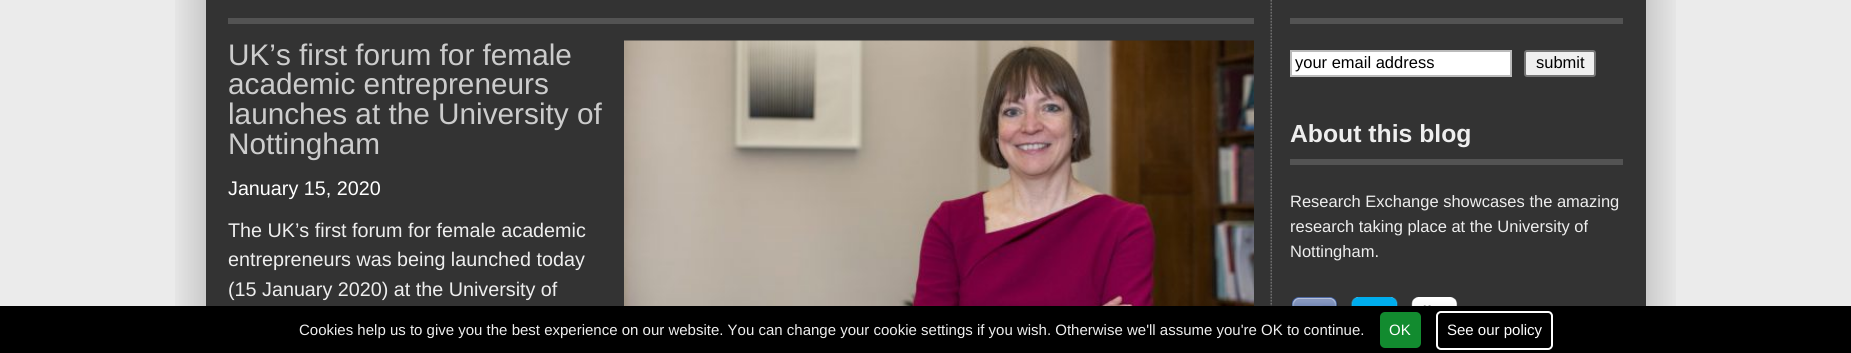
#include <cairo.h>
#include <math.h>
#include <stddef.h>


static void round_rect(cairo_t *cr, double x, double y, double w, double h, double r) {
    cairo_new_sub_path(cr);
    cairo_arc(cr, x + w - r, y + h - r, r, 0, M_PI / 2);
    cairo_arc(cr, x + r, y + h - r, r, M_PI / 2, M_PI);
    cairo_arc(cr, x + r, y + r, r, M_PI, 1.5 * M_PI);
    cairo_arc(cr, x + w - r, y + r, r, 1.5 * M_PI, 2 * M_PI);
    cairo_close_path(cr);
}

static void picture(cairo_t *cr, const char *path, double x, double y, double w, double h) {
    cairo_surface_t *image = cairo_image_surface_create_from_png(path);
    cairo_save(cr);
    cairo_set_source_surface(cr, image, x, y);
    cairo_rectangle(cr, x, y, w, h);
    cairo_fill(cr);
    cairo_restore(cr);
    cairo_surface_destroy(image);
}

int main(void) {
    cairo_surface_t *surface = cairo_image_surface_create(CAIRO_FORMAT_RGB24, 1851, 353);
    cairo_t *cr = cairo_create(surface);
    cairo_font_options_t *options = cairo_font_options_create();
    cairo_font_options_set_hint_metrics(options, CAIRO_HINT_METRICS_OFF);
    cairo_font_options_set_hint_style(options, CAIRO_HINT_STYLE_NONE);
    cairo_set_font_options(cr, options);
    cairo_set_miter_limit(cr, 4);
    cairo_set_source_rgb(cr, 0.918, 0.918, 0.918);
    cairo_paint(cr);
    picture(cr, "img1.png", 175, 0, 1501, 306);
    cairo_set_source_rgb(cr, 0.2, 0.2, 0.2);
    cairo_rectangle(cr, 206, 0, 1440, 306);
    cairo_fill(cr);
    picture(cr, "img2.png", 1270, 0, 2, 306);
    cairo_set_source_rgb(cr, 0.325, 0.325, 0.325);
    cairo_rectangle(cr, 228, 18, 1026, 6);
    cairo_fill(cr);
    cairo_select_font_face(cr, "Liberation Sans", CAIRO_FONT_SLANT_NORMAL, CAIRO_FONT_WEIGHT_NORMAL);
    cairo_set_font_size(cr, 29.75);
    cairo_set_source_rgb(cr, 0.8, 0.8, 0.8);
    cairo_move_to(cr, 228, 65);
    cairo_show_text(cr, "UK’s first forum for female");
    cairo_move_to(cr, 228, 94);
    cairo_show_text(cr, "academic entrepreneurs");
    cairo_move_to(cr, 228, 124);
    cairo_show_text(cr, "launches at the University of");
    cairo_move_to(cr, 228, 154);
    cairo_show_text(cr, "Nottingham");
    cairo_set_font_size(cr, 19.75);
    cairo_set_source_rgb(cr, 1, 1, 1);
    cairo_move_to(cr, 228, 195);
    cairo_show_text(cr, "January 15, 2020");
    cairo_set_source_rgb(cr, 0.933, 0.933, 0.933);
    cairo_move_to(cr, 228, 237);
    cairo_show_text(cr, "The UK’s first forum for female academic");
    cairo_move_to(cr, 228, 266);
    cairo_show_text(cr, "entrepreneurs was being launched today");
    cairo_move_to(cr, 228, 296);
    cairo_show_text(cr, "(15 January 2020) at the University of");
    picture(cr, "img3.png", 624, 40, 630, 266);
    cairo_set_source_rgb(cr, 0.325, 0.325, 0.325);
    cairo_rectangle(cr, 1290, 18, 333, 6);
    cairo_fill(cr);
    cairo_set_source_rgb(cr, 1, 1, 1);
    cairo_rectangle(cr, 1291, 51, 220, 25);
    cairo_fill_preserve(cr);
    cairo_set_source_rgb(cr, 0.733, 0.733, 0.733);
    cairo_stroke(cr);
    cairo_set_font_size(cr, 16.5);
    cairo_set_source_rgb(cr, 0, 0, 0);
    cairo_move_to(cr, 1295, 68);
    cairo_show_text(cr, "your email address");
    cairo_set_source_rgb(cr, 0.937, 0.937, 0.937);
    round_rect(cr, 1525, 51, 70, 25, 2);
    cairo_fill_preserve(cr);
    cairo_set_source_rgb(cr, 0.463, 0.463, 0.463);
    cairo_stroke(cr);
    cairo_set_source_rgb(cr, 0, 0, 0);
    cairo_move_to(cr, 1536, 68);
    cairo_show_text(cr, "submit");
    cairo_set_source_rgb(cr, 0.325, 0.325, 0.325);
    cairo_rectangle(cr, 1290, 159, 333, 6);
    cairo_fill(cr);
    cairo_select_font_face(cr, "Liberation Sans", CAIRO_FONT_SLANT_NORMAL, CAIRO_FONT_WEIGHT_BOLD);
    cairo_set_font_size(cr, 24.75);
    cairo_set_source_rgb(cr, 0.933, 0.933, 0.933);
    cairo_move_to(cr, 1290, 142);
    cairo_show_text(cr, "About this blog");
    cairo_select_font_face(cr, "Liberation Sans", CAIRO_FONT_SLANT_NORMAL, CAIRO_FONT_WEIGHT_NORMAL);
    cairo_set_font_size(cr, 16.5);
    cairo_move_to(cr, 1290, 207);
    cairo_show_text(cr, "Research Exchange showcases the amazing");
    cairo_move_to(cr, 1290, 232);
    cairo_show_text(cr, "research taking place at the University of");
    cairo_move_to(cr, 1290, 257);
    cairo_show_text(cr, "Nottingham.");
    picture(cr, "img4.png", 1291, 297, 47, 9);
    picture(cr, "img5.png", 1350, 297, 48, 9);
    picture(cr, "img6.png", 1411, 297, 47, 9);
    cairo_set_source_rgb(cr, 0, 0, 0);
    cairo_rectangle(cr, 0, 306, 1851, 47);
    cairo_fill(cr);
    cairo_set_font_size(cr, 15);
    cairo_set_source_rgb(cr, 0.933, 0.933, 0.933);
    cairo_move_to(cr, 299, 335);
    cairo_show_text(cr, "Cookies help us to give you the best experience on our website. You can change your cookie settings if you wish. Otherwise we'll assume you're OK to continue.");
    cairo_set_source_rgb(cr, 0.071, 0.545, 0.184);
    round_rect(cr, 1380, 312, 41, 36, 5);
    cairo_fill(cr);
    cairo_set_source_rgb(cr, 1, 1, 1);
    cairo_move_to(cr, 1389, 335);
    cairo_show_text(cr, "OK");
    round_rect(cr, 1437, 312, 115, 37, 4);
    cairo_stroke(cr);
    cairo_move_to(cr, 1447, 335);
    cairo_show_text(cr, "See our policy");
    cairo_surface_write_to_png(surface, "page.png");
    cairo_font_options_destroy(options);
    cairo_destroy(cr);
    cairo_surface_destroy(surface);
    return 0;
}
